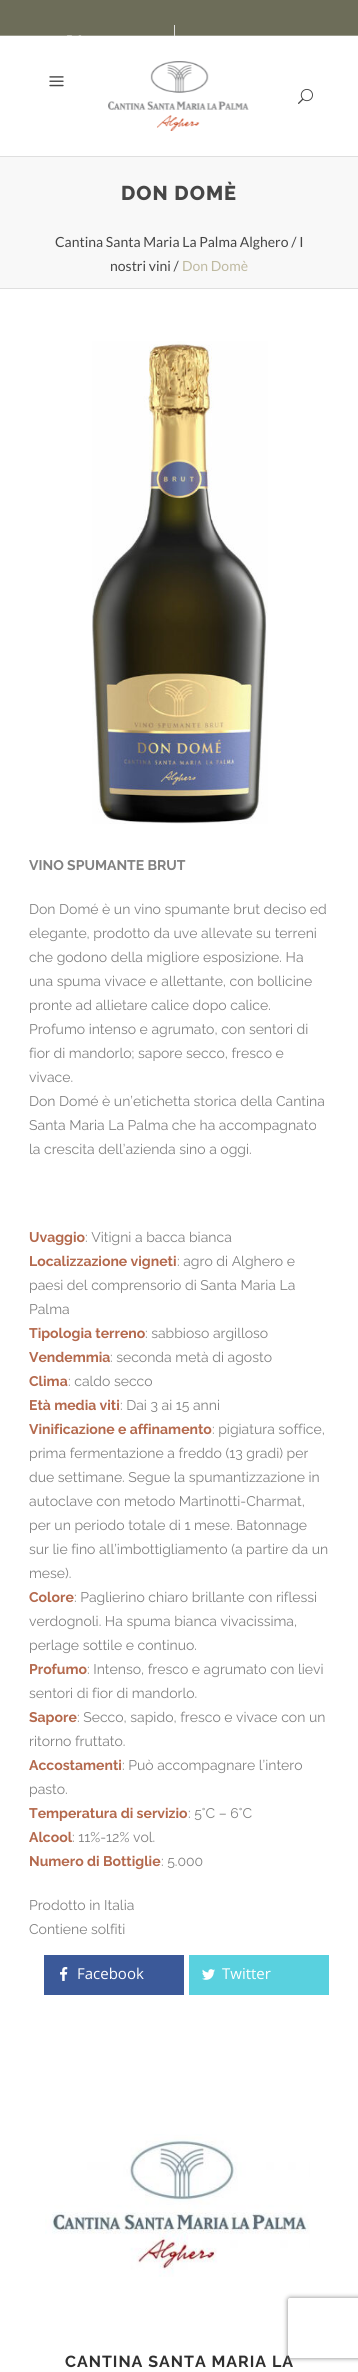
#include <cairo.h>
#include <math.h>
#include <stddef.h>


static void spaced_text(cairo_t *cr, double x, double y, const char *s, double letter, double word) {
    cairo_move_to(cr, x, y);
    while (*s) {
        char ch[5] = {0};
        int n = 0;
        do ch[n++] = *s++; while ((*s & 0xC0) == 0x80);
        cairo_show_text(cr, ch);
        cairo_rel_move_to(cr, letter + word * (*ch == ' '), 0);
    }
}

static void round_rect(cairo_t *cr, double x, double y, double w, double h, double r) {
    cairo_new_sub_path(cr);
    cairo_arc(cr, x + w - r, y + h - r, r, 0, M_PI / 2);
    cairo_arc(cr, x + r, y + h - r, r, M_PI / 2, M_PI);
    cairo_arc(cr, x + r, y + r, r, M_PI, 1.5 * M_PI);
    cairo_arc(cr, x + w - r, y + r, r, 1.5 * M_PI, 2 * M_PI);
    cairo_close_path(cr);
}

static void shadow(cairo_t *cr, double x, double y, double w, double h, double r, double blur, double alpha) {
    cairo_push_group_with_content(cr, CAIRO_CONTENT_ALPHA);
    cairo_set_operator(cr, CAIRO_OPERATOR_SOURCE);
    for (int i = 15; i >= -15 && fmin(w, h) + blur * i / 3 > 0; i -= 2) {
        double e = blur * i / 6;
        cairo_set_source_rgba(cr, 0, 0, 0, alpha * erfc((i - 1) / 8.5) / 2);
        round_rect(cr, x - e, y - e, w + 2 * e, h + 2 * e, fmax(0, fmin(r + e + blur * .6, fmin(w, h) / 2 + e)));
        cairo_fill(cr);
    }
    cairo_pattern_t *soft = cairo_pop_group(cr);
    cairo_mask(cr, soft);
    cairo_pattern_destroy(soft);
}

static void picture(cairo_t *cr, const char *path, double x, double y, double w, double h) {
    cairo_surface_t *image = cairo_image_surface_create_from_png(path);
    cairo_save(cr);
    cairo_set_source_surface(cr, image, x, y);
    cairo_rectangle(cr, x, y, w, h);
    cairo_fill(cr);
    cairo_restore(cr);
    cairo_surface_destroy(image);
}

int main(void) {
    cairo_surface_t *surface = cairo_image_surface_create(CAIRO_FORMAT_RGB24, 358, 2372);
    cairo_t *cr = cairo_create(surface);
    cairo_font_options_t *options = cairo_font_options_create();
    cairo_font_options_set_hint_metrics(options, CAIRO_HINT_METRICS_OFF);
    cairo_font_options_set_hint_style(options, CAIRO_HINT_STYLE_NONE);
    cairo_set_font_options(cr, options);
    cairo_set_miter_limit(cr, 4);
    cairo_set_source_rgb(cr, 1, 1, 1);
    cairo_paint(cr);
    cairo_set_source_rgb(cr, 0.427, 0.427, 0.349);
    cairo_rectangle(cr, 0, 0, 358, 35);
    cairo_fill(cr);
    cairo_set_source_rgb(cr, 0.6, 0.6, 0.545);
    cairo_rectangle(cr, 0, 35, 358, 1);
    cairo_fill(cr);
    cairo_set_source_rgb(cr, 0.875, 0.875, 0.875);
    cairo_rectangle(cr, 174, 25, 1, 11);
    cairo_fill(cr);
    picture(cr, "img1.png", 67, 35, 15, 1);
    cairo_rectangle(cr, 0, 156, 358, 1);
    cairo_fill(cr);
    picture(cr, "img2.png", 49, 76, 15, 11);
    picture(cr, "img3.png", 108, 61, 141, 70);
    picture(cr, "img4.png", 298, 88, 15, 16);
    cairo_set_source_rgb(cr, 0.969, 0.969, 0.969);
    cairo_rectangle(cr, 0, 157, 358, 131);
    cairo_fill(cr);
    cairo_set_source_rgb(cr, 0.875, 0.875, 0.875);
    cairo_rectangle(cr, 0, 288, 358, 1);
    cairo_fill(cr);
    cairo_select_font_face(cr, "Raleway ExtraBold", CAIRO_FONT_SLANT_NORMAL, CAIRO_FONT_WEIGHT_NORMAL);
    cairo_set_font_size(cr, 20);
    cairo_set_source_rgb(cr, 0.275, 0.275, 0.275);
    spaced_text(cr, 121, 200, "DON DOMÈ", 1, 0);
    cairo_select_font_face(cr, "Lato", CAIRO_FONT_SLANT_NORMAL, CAIRO_FONT_WEIGHT_NORMAL);
    cairo_set_font_size(cr, 14);
    cairo_move_to(cr, 55, 247);
    cairo_show_text(cr, "Cantina Santa Maria La Palma Alghero / I");
    cairo_move_to(cr, 110, 271);
    cairo_show_text(cr, "nostri vini /");
    cairo_set_source_rgb(cr, 0.749, 0.729, 0.631);
    cairo_move_to(cr, 182, 271);
    cairo_show_text(cr, "Don Domè");
    picture(cr, "img5.png", 92, 341, 176, 483);
    cairo_select_font_face(cr, "Raleway", CAIRO_FONT_SLANT_NORMAL, CAIRO_FONT_WEIGHT_BOLD);
    cairo_set_source_rgb(cr, 0.506, 0.506, 0.506);
    cairo_move_to(cr, 29, 870);
    cairo_show_text(cr, "VINO SPUMANTE BRUT");
    cairo_select_font_face(cr, "Raleway", CAIRO_FONT_SLANT_NORMAL, CAIRO_FONT_WEIGHT_NORMAL);
    cairo_move_to(cr, 29, 914);
    cairo_show_text(cr, "Don Domé è un vino spumante brut deciso ed");
    cairo_move_to(cr, 29, 938);
    cairo_show_text(cr, "elegante, prodotto da uve allevate su terreni");
    cairo_move_to(cr, 29, 962);
    cairo_show_text(cr, "che godono della migliore esposizione. Ha");
    cairo_move_to(cr, 29, 986);
    cairo_show_text(cr, "una spuma vivace e allettante, con bollicine");
    cairo_move_to(cr, 29, 1010);
    cairo_show_text(cr, "pronte ad allietare calice dopo calice.");
    cairo_move_to(cr, 29, 1034);
    cairo_show_text(cr, "Profumo intenso e agrumato, con sentori di");
    cairo_move_to(cr, 29, 1058);
    cairo_show_text(cr, "fior di mandorlo; sapore secco, fresco e");
    cairo_move_to(cr, 29, 1082);
    cairo_show_text(cr, "vivace.");
    cairo_move_to(cr, 29, 1106);
    cairo_show_text(cr, "Don Domé è un’etichetta storica della Cantina");
    cairo_move_to(cr, 29, 1130);
    cairo_show_text(cr, "Santa Maria La Palma che ha accompagnato");
    cairo_move_to(cr, 29, 1154);
    cairo_show_text(cr, "la crescita dell’azienda sino a oggi.");
    cairo_select_font_face(cr, "Raleway", CAIRO_FONT_SLANT_NORMAL, CAIRO_FONT_WEIGHT_BOLD);
    cairo_set_source_rgb(cr, 0.706, 0.412, 0.302);
    cairo_move_to(cr, 29, 1242);
    cairo_show_text(cr, "Uvaggio");
    cairo_select_font_face(cr, "Raleway", CAIRO_FONT_SLANT_NORMAL, CAIRO_FONT_WEIGHT_NORMAL);
    cairo_set_source_rgb(cr, 0.506, 0.506, 0.506);
    cairo_move_to(cr, 85, 1242);
    cairo_show_text(cr, ": Vitigni a bacca bianca");
    cairo_select_font_face(cr, "Raleway", CAIRO_FONT_SLANT_NORMAL, CAIRO_FONT_WEIGHT_BOLD);
    cairo_set_source_rgb(cr, 0.706, 0.412, 0.302);
    cairo_move_to(cr, 29, 1266);
    cairo_show_text(cr, "Localizzazione vigneti");
    cairo_select_font_face(cr, "Raleway", CAIRO_FONT_SLANT_NORMAL, CAIRO_FONT_WEIGHT_NORMAL);
    cairo_set_source_rgb(cr, 0.506, 0.506, 0.506);
    cairo_move_to(cr, 177, 1266);
    cairo_show_text(cr, ": agro di Alghero e");
    cairo_move_to(cr, 29, 1290);
    cairo_show_text(cr, "paesi del comprensorio di Santa Maria La");
    cairo_move_to(cr, 29, 1314);
    cairo_show_text(cr, "Palma");
    cairo_select_font_face(cr, "Raleway", CAIRO_FONT_SLANT_NORMAL, CAIRO_FONT_WEIGHT_BOLD);
    cairo_set_source_rgb(cr, 0.706, 0.412, 0.302);
    cairo_move_to(cr, 29, 1338);
    cairo_show_text(cr, "Tipologia terreno");
    cairo_select_font_face(cr, "Raleway", CAIRO_FONT_SLANT_NORMAL, CAIRO_FONT_WEIGHT_NORMAL);
    cairo_set_source_rgb(cr, 0.506, 0.506, 0.506);
    cairo_move_to(cr, 145, 1338);
    cairo_show_text(cr, ": sabbioso argilloso");
    cairo_select_font_face(cr, "Raleway", CAIRO_FONT_SLANT_NORMAL, CAIRO_FONT_WEIGHT_BOLD);
    cairo_set_source_rgb(cr, 0.706, 0.412, 0.302);
    cairo_move_to(cr, 29, 1362);
    cairo_show_text(cr, "Vendemmia");
    cairo_select_font_face(cr, "Raleway", CAIRO_FONT_SLANT_NORMAL, CAIRO_FONT_WEIGHT_NORMAL);
    cairo_set_source_rgb(cr, 0.506, 0.506, 0.506);
    cairo_move_to(cr, 110, 1362);
    cairo_show_text(cr, ": seconda metà di agosto");
    cairo_select_font_face(cr, "Raleway", CAIRO_FONT_SLANT_NORMAL, CAIRO_FONT_WEIGHT_BOLD);
    cairo_set_source_rgb(cr, 0.706, 0.412, 0.302);
    cairo_move_to(cr, 29, 1386);
    cairo_show_text(cr, "Clima");
    cairo_select_font_face(cr, "Raleway", CAIRO_FONT_SLANT_NORMAL, CAIRO_FONT_WEIGHT_NORMAL);
    cairo_set_source_rgb(cr, 0.506, 0.506, 0.506);
    cairo_move_to(cr, 68, 1386);
    cairo_show_text(cr, ": caldo secco");
    cairo_select_font_face(cr, "Raleway", CAIRO_FONT_SLANT_NORMAL, CAIRO_FONT_WEIGHT_BOLD);
    cairo_set_source_rgb(cr, 0.706, 0.412, 0.302);
    cairo_move_to(cr, 29, 1410);
    cairo_show_text(cr, "Età media viti");
    cairo_select_font_face(cr, "Raleway", CAIRO_FONT_SLANT_NORMAL, CAIRO_FONT_WEIGHT_NORMAL);
    cairo_set_source_rgb(cr, 0.506, 0.506, 0.506);
    cairo_move_to(cr, 120, 1410);
    cairo_show_text(cr, ": Dai 3 ai 15 anni");
    cairo_select_font_face(cr, "Raleway", CAIRO_FONT_SLANT_NORMAL, CAIRO_FONT_WEIGHT_BOLD);
    cairo_set_source_rgb(cr, 0.706, 0.412, 0.302);
    cairo_move_to(cr, 29, 1434);
    cairo_show_text(cr, "Vinificazione e affinamento");
    cairo_select_font_face(cr, "Raleway", CAIRO_FONT_SLANT_NORMAL, CAIRO_FONT_WEIGHT_NORMAL);
    cairo_set_source_rgb(cr, 0.506, 0.506, 0.506);
    cairo_move_to(cr, 212, 1434);
    cairo_show_text(cr, ": pigiatura soffice,");
    cairo_move_to(cr, 29, 1458);
    cairo_show_text(cr, "prima fermentazione a freddo (13 gradi) per");
    cairo_move_to(cr, 29, 1482);
    cairo_show_text(cr, "due settimane. Segue la spumantizzazione in");
    cairo_move_to(cr, 29, 1506);
    cairo_show_text(cr, "autoclave con metodo Martinotti-Charmat,");
    cairo_move_to(cr, 29, 1530);
    cairo_show_text(cr, "per un periodo totale di 1 mese. Batonnage");
    cairo_move_to(cr, 29, 1554);
    cairo_show_text(cr, "sur lie fino all’imbottigliamento (a partire da un");
    cairo_move_to(cr, 29, 1578);
    cairo_show_text(cr, "mese).");
    cairo_select_font_face(cr, "Raleway", CAIRO_FONT_SLANT_NORMAL, CAIRO_FONT_WEIGHT_BOLD);
    cairo_set_source_rgb(cr, 0.706, 0.412, 0.302);
    cairo_move_to(cr, 29, 1602);
    cairo_show_text(cr, "Colore");
    cairo_select_font_face(cr, "Raleway", CAIRO_FONT_SLANT_NORMAL, CAIRO_FONT_WEIGHT_NORMAL);
    cairo_set_source_rgb(cr, 0.506, 0.506, 0.506);
    cairo_move_to(cr, 74, 1602);
    cairo_show_text(cr, ": Paglierino chiaro brillante con riflessi");
    cairo_move_to(cr, 29, 1626);
    cairo_show_text(cr, "verdognoli. Ha spuma bianca vivacissima,");
    cairo_move_to(cr, 29, 1650);
    cairo_show_text(cr, "perlage sottile e continuo.");
    cairo_select_font_face(cr, "Raleway", CAIRO_FONT_SLANT_NORMAL, CAIRO_FONT_WEIGHT_BOLD);
    cairo_set_source_rgb(cr, 0.706, 0.412, 0.302);
    cairo_move_to(cr, 29, 1674);
    cairo_show_text(cr, "Profumo");
    cairo_select_font_face(cr, "Raleway", CAIRO_FONT_SLANT_NORMAL, CAIRO_FONT_WEIGHT_NORMAL);
    cairo_set_source_rgb(cr, 0.506, 0.506, 0.506);
    cairo_move_to(cr, 87, 1674);
    cairo_show_text(cr, ": Intenso, fresco e agrumato con lievi");
    cairo_move_to(cr, 29, 1698);
    cairo_show_text(cr, "sentori di fior di mandorlo.");
    cairo_select_font_face(cr, "Raleway", CAIRO_FONT_SLANT_NORMAL, CAIRO_FONT_WEIGHT_BOLD);
    cairo_set_source_rgb(cr, 0.706, 0.412, 0.302);
    cairo_move_to(cr, 29, 1722);
    cairo_show_text(cr, "Sapore");
    cairo_select_font_face(cr, "Raleway", CAIRO_FONT_SLANT_NORMAL, CAIRO_FONT_WEIGHT_NORMAL);
    cairo_set_source_rgb(cr, 0.506, 0.506, 0.506);
    cairo_move_to(cr, 77, 1722);
    cairo_show_text(cr, ": Secco, sapido, fresco e vivace con un");
    cairo_move_to(cr, 29, 1746);
    cairo_show_text(cr, "ritorno fruttato.");
    cairo_select_font_face(cr, "Raleway", CAIRO_FONT_SLANT_NORMAL, CAIRO_FONT_WEIGHT_BOLD);
    cairo_set_source_rgb(cr, 0.706, 0.412, 0.302);
    cairo_move_to(cr, 29, 1770);
    cairo_show_text(cr, "Accostamenti");
    cairo_select_font_face(cr, "Raleway", CAIRO_FONT_SLANT_NORMAL, CAIRO_FONT_WEIGHT_NORMAL);
    cairo_set_source_rgb(cr, 0.506, 0.506, 0.506);
    cairo_move_to(cr, 122, 1770);
    cairo_show_text(cr, ": Può accompagnare l’intero");
    cairo_move_to(cr, 29, 1794);
    cairo_show_text(cr, "pasto.");
    cairo_select_font_face(cr, "Raleway", CAIRO_FONT_SLANT_NORMAL, CAIRO_FONT_WEIGHT_BOLD);
    cairo_set_source_rgb(cr, 0.706, 0.412, 0.302);
    cairo_move_to(cr, 29, 1818);
    cairo_show_text(cr, "Temperatura di servizio");
    cairo_select_font_face(cr, "Raleway", CAIRO_FONT_SLANT_NORMAL, CAIRO_FONT_WEIGHT_NORMAL);
    cairo_set_source_rgb(cr, 0.506, 0.506, 0.506);
    cairo_move_to(cr, 188, 1818);
    cairo_show_text(cr, ": 5°C – 6°C");
    cairo_select_font_face(cr, "Raleway", CAIRO_FONT_SLANT_NORMAL, CAIRO_FONT_WEIGHT_BOLD);
    cairo_set_source_rgb(cr, 0.706, 0.412, 0.302);
    cairo_move_to(cr, 29, 1842);
    cairo_show_text(cr, "Alcool");
    cairo_select_font_face(cr, "Raleway", CAIRO_FONT_SLANT_NORMAL, CAIRO_FONT_WEIGHT_NORMAL);
    cairo_set_source_rgb(cr, 0.506, 0.506, 0.506);
    cairo_move_to(cr, 72, 1842);
    cairo_show_text(cr, ": 11%-12% vol.");
    cairo_select_font_face(cr, "Raleway", CAIRO_FONT_SLANT_NORMAL, CAIRO_FONT_WEIGHT_BOLD);
    cairo_set_source_rgb(cr, 0.706, 0.412, 0.302);
    cairo_move_to(cr, 29, 1866);
    cairo_show_text(cr, "Numero di Bottiglie");
    cairo_select_font_face(cr, "Raleway", CAIRO_FONT_SLANT_NORMAL, CAIRO_FONT_WEIGHT_NORMAL);
    cairo_set_source_rgb(cr, 0.506, 0.506, 0.506);
    cairo_move_to(cr, 161, 1866);
    cairo_show_text(cr, ": 5.000");
    cairo_move_to(cr, 29, 1910);
    cairo_show_text(cr, "Prodotto in Italia");
    cairo_move_to(cr, 29, 1934);
    cairo_show_text(cr, "Contiene solfiti");
    cairo_set_source_rgb(cr, 0.231, 0.349, 0.6);
    cairo_rectangle(cr, 44, 1955, 140, 40);
    cairo_fill(cr);
    picture(cr, "img6.png", 60, 1967, 8, 14);
    cairo_select_font_face(cr, "Open Sans", CAIRO_FONT_SLANT_NORMAL, CAIRO_FONT_WEIGHT_NORMAL);
    cairo_set_font_size(cr, 15);
    cairo_set_source_rgb(cr, 1, 1, 1);
    cairo_move_to(cr, 77, 1979);
    cairo_show_text(cr, "Facebook");
    cairo_set_source_rgb(cr, 0.349, 0.82, 0.875);
    cairo_rectangle(cr, 189, 1955, 140, 40);
    cairo_fill(cr);
    picture(cr, "img7.png", 202, 1969, 13, 11);
    cairo_set_source_rgb(cr, 1, 1, 1);
    cairo_move_to(cr, 222, 1979);
    cairo_show_text(cr, "Twitter");
    picture(cr, "img8.png", 45, 2134, 265, 143);
    cairo_select_font_face(cr, "Raleway", CAIRO_FONT_SLANT_NORMAL, CAIRO_FONT_WEIGHT_BOLD);
    cairo_set_font_size(cr, 16);
    cairo_set_source_rgb(cr, 0.188, 0.188, 0.188);
    spaced_text(cr, 65, 2367, "CANTINA SANTA MARIA LA", 1, 0);
    cairo_save(cr);
    cairo_set_fill_rule(cr, CAIRO_FILL_RULE_EVEN_ODD);
    cairo_new_path(cr);
    cairo_move_to(cr, 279, 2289);
    cairo_line_to(cr, 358, 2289);
    cairo_line_to(cr, 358, 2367);
    cairo_line_to(cr, 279, 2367);
    cairo_close_path(cr);
    cairo_move_to(cr, 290, 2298);
    cairo_line_to(cr, 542, 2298);
    cairo_curve_to(cr, 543, 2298, 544, 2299, 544, 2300);
    cairo_line_to(cr, 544, 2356);
    cairo_curve_to(cr, 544, 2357, 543, 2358, 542, 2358);
    cairo_line_to(cr, 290, 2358);
    cairo_curve_to(cr, 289, 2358, 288, 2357, 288, 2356);
    cairo_line_to(cr, 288, 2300);
    cairo_curve_to(cr, 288, 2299, 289, 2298, 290, 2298);
    cairo_close_path(cr);
    cairo_clip(cr);
    cairo_set_source_rgb(cr, 0.502, 0.502, 0.502);
    shadow(cr, 288, 2298, 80, 60, 2, 2.5, 1);
    cairo_restore(cr);
    cairo_surface_write_to_png(surface, "page.png");
    cairo_font_options_destroy(options);
    cairo_destroy(cr);
    cairo_surface_destroy(surface);
    return 0;
}
